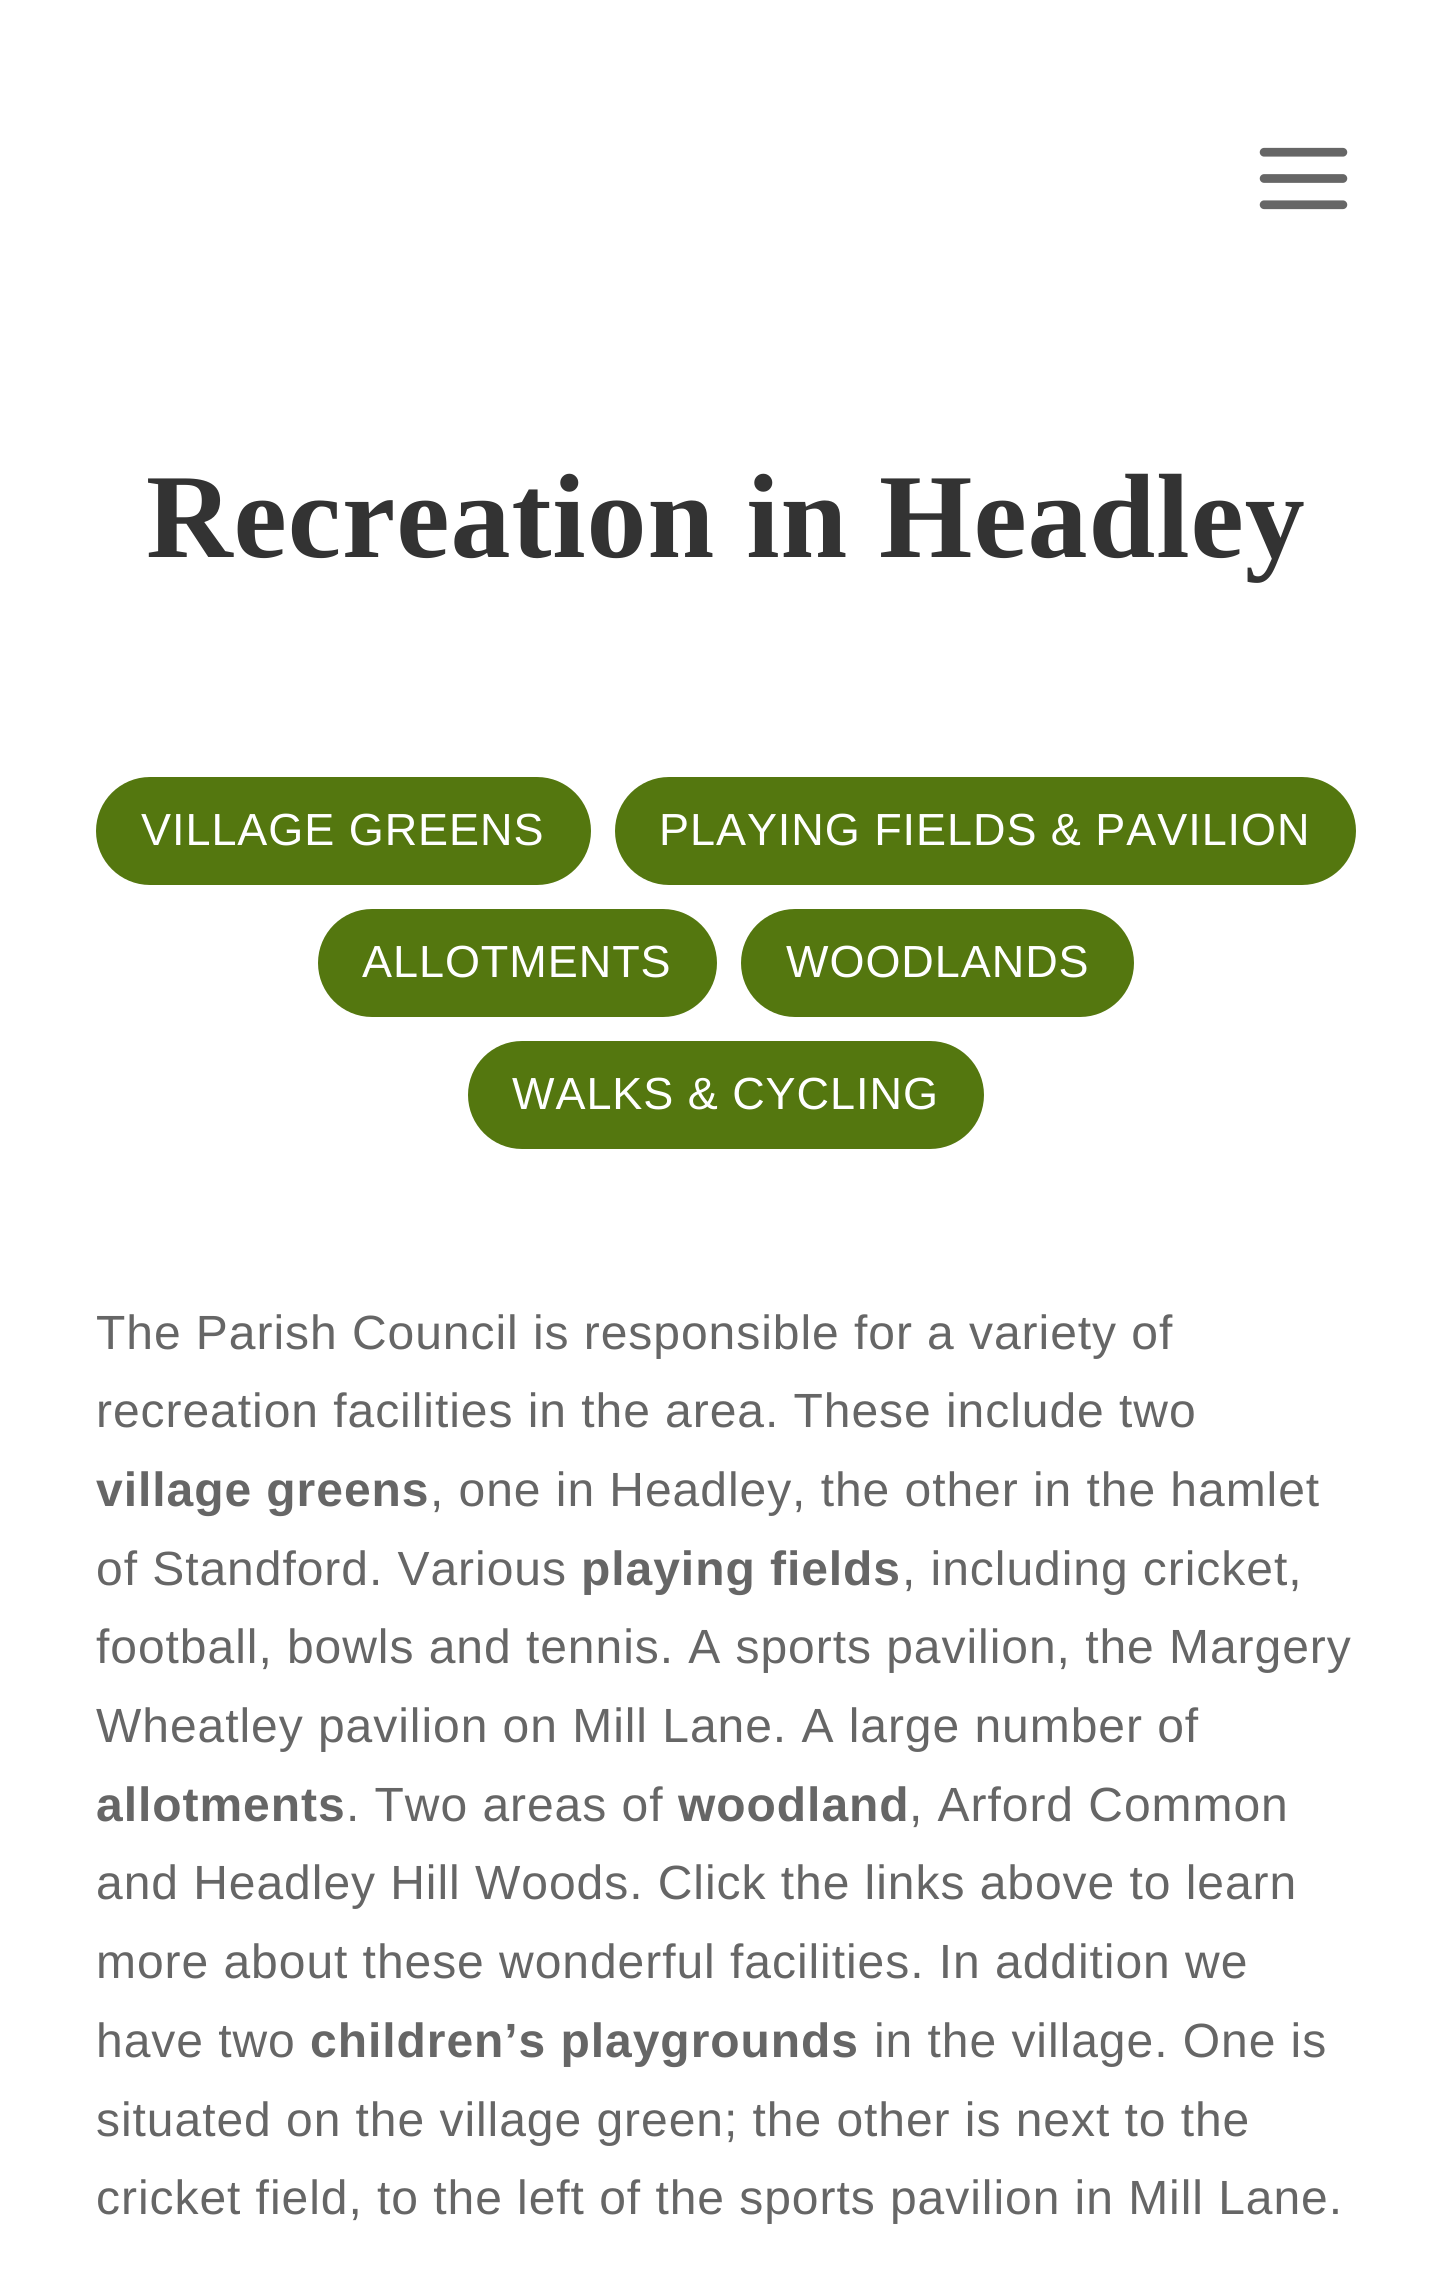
#include <cairo.h>
#include <math.h>
#include <stddef.h>


static void spaced_text(cairo_t *cr, double x, double y, const char *s, double letter, double word) {
    cairo_move_to(cr, x, y);
    while (*s) {
        char ch[5] = {0};
        int n = 0;
        do ch[n++] = *s++; while ((*s & 0xC0) == 0x80);
        cairo_show_text(cr, ch);
        cairo_rel_move_to(cr, letter + word * (*ch == ' '), 0);
    }
}

static void round_rect(cairo_t *cr, double x, double y, double w, double h, double r) {
    cairo_new_sub_path(cr);
    cairo_arc(cr, x + w - r, y + h - r, r, 0, M_PI / 2);
    cairo_arc(cr, x + r, y + h - r, r, M_PI / 2, M_PI);
    cairo_arc(cr, x + r, y + r, r, M_PI, 1.5 * M_PI);
    cairo_arc(cr, x + w - r, y + r, r, 1.5 * M_PI, 2 * M_PI);
    cairo_close_path(cr);
}

static void picture(cairo_t *cr, const char *path, double x, double y, double w, double h) {
    cairo_surface_t *image = cairo_image_surface_create_from_png(path);
    cairo_save(cr);
    cairo_set_source_surface(cr, image, x, y);
    cairo_rectangle(cr, x, y, w, h);
    cairo_fill(cr);
    cairo_restore(cr);
    cairo_surface_destroy(image);
}

int main(void) {
    cairo_surface_t *surface = cairo_image_surface_create(CAIRO_FORMAT_RGB24, 1451, 2279);
    cairo_t *cr = cairo_create(surface);
    cairo_font_options_t *options = cairo_font_options_create();
    cairo_font_options_set_hint_metrics(options, CAIRO_HINT_METRICS_OFF);
    cairo_font_options_set_hint_style(options, CAIRO_HINT_STYLE_NONE);
    cairo_set_font_options(cr, options);
    cairo_set_miter_limit(cr, 4);
    cairo_set_source_rgb(cr, 1, 1, 1);
    cairo_paint(cr);
    picture(cr, "img1.png", 1259, 147, 89, 63);
    cairo_select_font_face(cr, "Liberation Serif", CAIRO_FONT_SLANT_NORMAL, CAIRO_FONT_WEIGHT_BOLD);
    cairo_set_font_size(cr, 120);
    cairo_set_source_rgb(cr, 0.2, 0.2, 0.2);
    spaced_text(cr, 146, 557, "Recreation in Headley", 0.95, 0);
    cairo_set_source_rgb(cr, 0.329, 0.467, 0.059);
    round_rect(cr, 96, 777, 495, 108, 54);
    cairo_fill(cr);
    cairo_select_font_face(cr, "Liberation Sans", CAIRO_FONT_SLANT_NORMAL, CAIRO_FONT_WEIGHT_NORMAL);
    cairo_set_font_size(cr, 45);
    cairo_set_source_rgb(cr, 1, 1, 1);
    spaced_text(cr, 141, 845, "VILLAGE GREENS", 0.95, 0);
    cairo_set_source_rgb(cr, 0.329, 0.467, 0.059);
    round_rect(cr, 615, 777, 741, 108, 54);
    cairo_fill(cr);
    cairo_set_source_rgb(cr, 1, 1, 1);
    spaced_text(cr, 659, 845, "PLAYING FIELDS & PAVILION", 0.95, 0);
    cairo_set_source_rgb(cr, 0.329, 0.467, 0.059);
    round_rect(cr, 318, 909, 399, 108, 54);
    cairo_fill(cr);
    cairo_set_source_rgb(cr, 1, 1, 1);
    spaced_text(cr, 362, 977, "ALLOTMENTS", 0.95, 0);
    cairo_set_source_rgb(cr, 0.329, 0.467, 0.059);
    round_rect(cr, 741, 909, 393, 108, 54);
    cairo_fill(cr);
    cairo_set_source_rgb(cr, 1, 1, 1);
    spaced_text(cr, 786, 977, "WOODLANDS", 0.95, 0);
    cairo_set_source_rgb(cr, 0.329, 0.467, 0.059);
    round_rect(cr, 468, 1041, 516, 108, 54);
    cairo_fill(cr);
    cairo_set_source_rgb(cr, 1, 1, 1);
    spaced_text(cr, 512, 1109, "WALKS & CYCLING", 0.95, 0);
    cairo_set_font_size(cr, 48);
    cairo_set_source_rgb(cr, 0.4, 0.4, 0.4);
    spaced_text(cr, 96, 1349, "The Parish Council is responsible for a variety of", 0.95, 0);
    spaced_text(cr, 96, 1427, "recreation facilities in the area. These include two", 0.95, 0);
    cairo_select_font_face(cr, "Liberation Sans", CAIRO_FONT_SLANT_NORMAL, CAIRO_FONT_WEIGHT_BOLD);
    spaced_text(cr, 96, 1506, "village greens", 0.95, 0);
    cairo_select_font_face(cr, "Liberation Sans", CAIRO_FONT_SLANT_NORMAL, CAIRO_FONT_WEIGHT_NORMAL);
    spaced_text(cr, 430, 1506, ", one in Headley, the other in the hamlet", 0.95, 0);
    spaced_text(cr, 96, 1585, "of Standford. Various", 0.95, 0);
    cairo_select_font_face(cr, "Liberation Sans", CAIRO_FONT_SLANT_NORMAL, CAIRO_FONT_WEIGHT_BOLD);
    spaced_text(cr, 581, 1585, "playing fields", 0.95, 0);
    cairo_select_font_face(cr, "Liberation Sans", CAIRO_FONT_SLANT_NORMAL, CAIRO_FONT_WEIGHT_NORMAL);
    spaced_text(cr, 902, 1585, ", including cricket,", 0.95, 0);
    spaced_text(cr, 96, 1663, "football, bowls and tennis. A sports pavilion, the Margery", 0.95, 0);
    spaced_text(cr, 96, 1742, "Wheatley pavilion on Mill Lane. A large number of", 0.95, 0);
    cairo_select_font_face(cr, "Liberation Sans", CAIRO_FONT_SLANT_NORMAL, CAIRO_FONT_WEIGHT_BOLD);
    spaced_text(cr, 96, 1821, "allotments", 0.95, 0);
    cairo_select_font_face(cr, "Liberation Sans", CAIRO_FONT_SLANT_NORMAL, CAIRO_FONT_WEIGHT_NORMAL);
    spaced_text(cr, 346, 1821, ". Two areas of", 0.95, 0);
    cairo_select_font_face(cr, "Liberation Sans", CAIRO_FONT_SLANT_NORMAL, CAIRO_FONT_WEIGHT_BOLD);
    spaced_text(cr, 678, 1821, "woodland", 0.95, 0);
    cairo_select_font_face(cr, "Liberation Sans", CAIRO_FONT_SLANT_NORMAL, CAIRO_FONT_WEIGHT_NORMAL);
    spaced_text(cr, 909, 1821, ", Arford Common", 0.95, 0);
    spaced_text(cr, 96, 1899, "and Headley Hill Woods. Click the links above to learn", 0.95, 0);
    spaced_text(cr, 96, 1978, "more about these wonderful facilities. In addition we", 0.95, 0);
    spaced_text(cr, 96, 2057, "have two", 0.95, 0);
    cairo_select_font_face(cr, "Liberation Sans", CAIRO_FONT_SLANT_NORMAL, CAIRO_FONT_WEIGHT_BOLD);
    spaced_text(cr, 310, 2057, "children’s playgrounds", 0.95, 0);
    cairo_select_font_face(cr, "Liberation Sans", CAIRO_FONT_SLANT_NORMAL, CAIRO_FONT_WEIGHT_NORMAL);
    spaced_text(cr, 874, 2057, "in the village. One is", 0.95, 0);
    spaced_text(cr, 96, 2136, "situated on the village green; the other is next to the", 0.95, 0);
    spaced_text(cr, 96, 2214, "cricket field, to the left of the sports pavilion in Mill Lane.", 0.95, 0);
    cairo_surface_write_to_png(surface, "page.png");
    cairo_font_options_destroy(options);
    cairo_destroy(cr);
    cairo_surface_destroy(surface);
    return 0;
}
